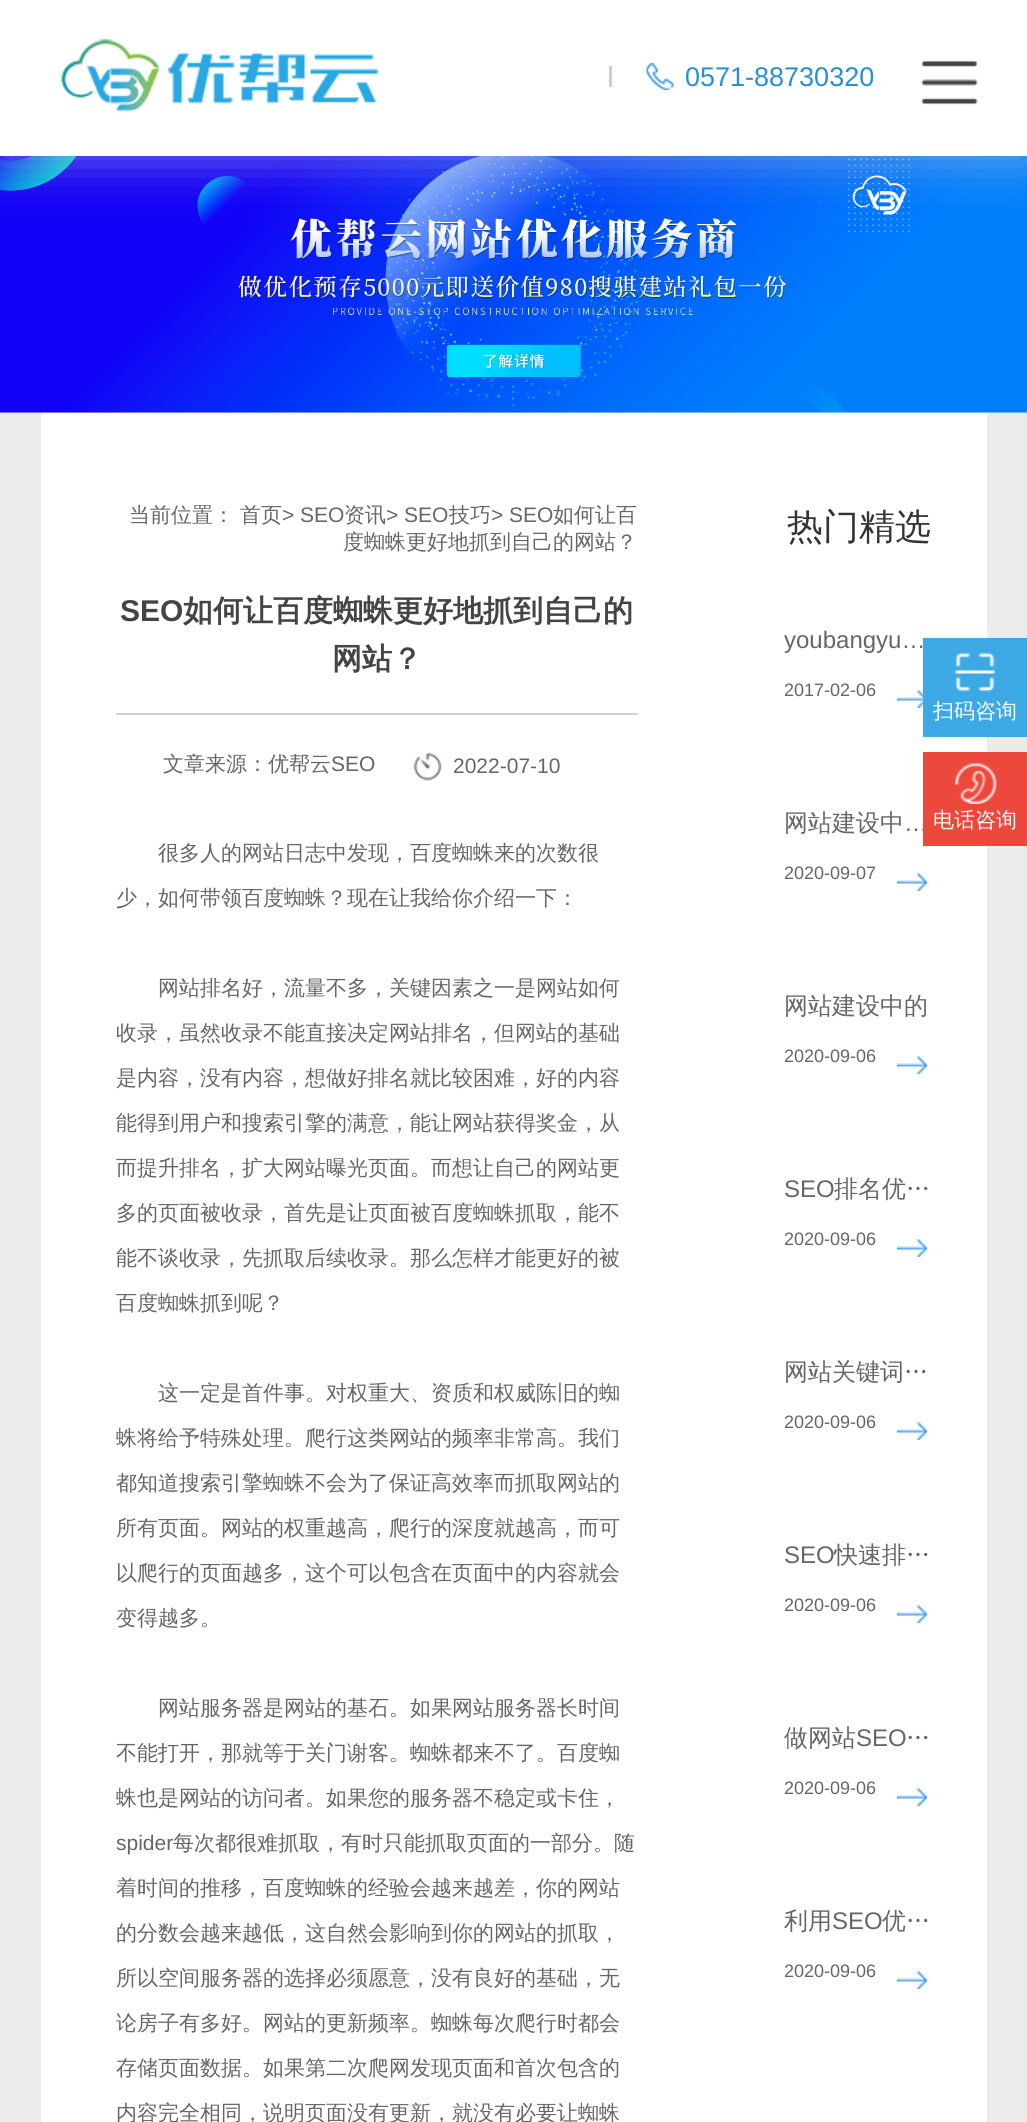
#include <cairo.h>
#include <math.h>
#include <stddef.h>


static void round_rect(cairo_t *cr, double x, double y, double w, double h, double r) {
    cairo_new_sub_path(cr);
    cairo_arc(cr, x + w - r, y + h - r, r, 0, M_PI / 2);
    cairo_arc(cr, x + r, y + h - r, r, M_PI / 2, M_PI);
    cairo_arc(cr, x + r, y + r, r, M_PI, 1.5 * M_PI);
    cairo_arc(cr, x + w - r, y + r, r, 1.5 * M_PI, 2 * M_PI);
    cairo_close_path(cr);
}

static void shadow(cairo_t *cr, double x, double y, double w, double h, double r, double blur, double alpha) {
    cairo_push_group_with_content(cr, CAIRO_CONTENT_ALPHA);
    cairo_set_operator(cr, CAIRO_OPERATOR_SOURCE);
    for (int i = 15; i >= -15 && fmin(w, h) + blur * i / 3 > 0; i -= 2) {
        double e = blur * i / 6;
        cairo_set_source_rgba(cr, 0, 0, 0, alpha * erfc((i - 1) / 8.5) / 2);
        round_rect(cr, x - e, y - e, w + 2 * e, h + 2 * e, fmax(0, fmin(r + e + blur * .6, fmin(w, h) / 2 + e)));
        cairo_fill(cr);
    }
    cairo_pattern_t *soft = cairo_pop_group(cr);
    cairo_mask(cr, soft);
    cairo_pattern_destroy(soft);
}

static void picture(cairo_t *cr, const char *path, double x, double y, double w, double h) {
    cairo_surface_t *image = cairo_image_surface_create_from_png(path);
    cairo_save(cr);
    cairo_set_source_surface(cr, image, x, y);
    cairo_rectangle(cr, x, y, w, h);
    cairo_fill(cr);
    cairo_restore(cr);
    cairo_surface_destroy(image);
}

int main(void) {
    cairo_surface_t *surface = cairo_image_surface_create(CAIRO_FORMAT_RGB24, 1027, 2122);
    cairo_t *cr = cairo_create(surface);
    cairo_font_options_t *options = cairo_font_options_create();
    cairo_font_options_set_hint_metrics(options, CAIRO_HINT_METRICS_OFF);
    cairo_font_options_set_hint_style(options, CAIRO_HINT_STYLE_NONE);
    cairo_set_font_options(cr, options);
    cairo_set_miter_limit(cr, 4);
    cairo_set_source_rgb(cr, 0.918, 0.918, 0.918);
    cairo_paint(cr);
    picture(cr, "img4.png", 0, 156, 1027, 257);
    cairo_set_source_rgb(cr, 0.808, 0.808, 0.808);
    shadow(cr, 0, 0, 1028, 156, 0, 26, 0.6);
    cairo_set_source_rgb(cr, 1, 1, 1);
    cairo_rectangle(cr, 0, 0, 1027, 156);
    cairo_fill(cr);
    picture(cr, "img1.png", 61, 38, 318, 74);
    cairo_set_source_rgb(cr, 0.812, 0.812, 0.812);
    cairo_rectangle(cr, 609, 66, 3, 21);
    cairo_fill(cr);
    picture(cr, "img2.png", 646, 63, 28, 27);
    cairo_select_font_face(cr, "Liberation Sans", CAIRO_FONT_SLANT_NORMAL, CAIRO_FONT_WEIGHT_NORMAL);
    cairo_set_font_size(cr, 27);
    cairo_set_source_rgb(cr, 0.157, 0.561, 0.831);
    cairo_move_to(cr, 685, 86);
    cairo_show_text(cr, "0571-88730320");
    picture(cr, "img3.png", 921, 60, 58, 45);
    cairo_set_source_rgb(cr, 1, 1, 1);
    cairo_rectangle(cr, 41, 413, 946, 1709);
    cairo_fill(cr);
    cairo_select_font_face(cr, "WenQuanYi Zen Hei Medium", CAIRO_FONT_SLANT_NORMAL, CAIRO_FONT_WEIGHT_NORMAL);
    cairo_set_font_size(cr, 21);
    cairo_set_source_rgb(cr, 0.4, 0.4, 0.4);
    cairo_move_to(cr, 129, 522);
    cairo_show_text(cr, "当前位置：");
    cairo_move_to(cr, 240, 522);
    cairo_show_text(cr, "首页");
    cairo_select_font_face(cr, "Liberation Sans", CAIRO_FONT_SLANT_NORMAL, CAIRO_FONT_WEIGHT_NORMAL);
    cairo_move_to(cr, 282, 522);
    cairo_show_text(cr, "> SEO");
    cairo_select_font_face(cr, "WenQuanYi Zen Hei Medium", CAIRO_FONT_SLANT_NORMAL, CAIRO_FONT_WEIGHT_NORMAL);
    cairo_move_to(cr, 344, 522);
    cairo_show_text(cr, "资讯");
    cairo_select_font_face(cr, "Liberation Sans", CAIRO_FONT_SLANT_NORMAL, CAIRO_FONT_WEIGHT_NORMAL);
    cairo_move_to(cr, 386, 522);
    cairo_show_text(cr, "> SEO");
    cairo_select_font_face(cr, "WenQuanYi Zen Hei Medium", CAIRO_FONT_SLANT_NORMAL, CAIRO_FONT_WEIGHT_NORMAL);
    cairo_move_to(cr, 449, 522);
    cairo_show_text(cr, "技巧");
    cairo_select_font_face(cr, "Liberation Sans", CAIRO_FONT_SLANT_NORMAL, CAIRO_FONT_WEIGHT_NORMAL);
    cairo_move_to(cr, 491, 522);
    cairo_show_text(cr, "> SEO");
    cairo_select_font_face(cr, "WenQuanYi Zen Hei Medium", CAIRO_FONT_SLANT_NORMAL, CAIRO_FONT_WEIGHT_NORMAL);
    cairo_move_to(cr, 553, 522);
    cairo_show_text(cr, "如何让百");
    cairo_move_to(cr, 343, 549);
    cairo_show_text(cr, "度蜘蛛更好地抓到自己的网站？");
    cairo_set_source_rgb(cr, 0.824, 0.824, 0.824);
    cairo_rectangle(cr, 116, 713, 522, 2);
    cairo_fill(cr);
    cairo_select_font_face(cr, "Liberation Sans", CAIRO_FONT_SLANT_NORMAL, CAIRO_FONT_WEIGHT_BOLD);
    cairo_set_font_size(cr, 30);
    cairo_set_source_rgb(cr, 0.267, 0.267, 0.267);
    cairo_move_to(cr, 120, 621);
    cairo_show_text(cr, "SEO");
    cairo_select_font_face(cr, "WenQuanYi Zen Hei", CAIRO_FONT_SLANT_NORMAL, CAIRO_FONT_WEIGHT_BOLD);
    cairo_move_to(cr, 183, 621);
    cairo_show_text(cr, "如何让百度蜘蛛更好地抓到自己的");
    cairo_move_to(cr, 332, 669);
    cairo_show_text(cr, "网站？");
    cairo_select_font_face(cr, "WenQuanYi Zen Hei Medium", CAIRO_FONT_SLANT_NORMAL, CAIRO_FONT_WEIGHT_NORMAL);
    cairo_set_font_size(cr, 21);
    cairo_set_source_rgb(cr, 0.4, 0.4, 0.4);
    cairo_move_to(cr, 163, 771);
    cairo_show_text(cr, "文章来源：优帮云");
    cairo_select_font_face(cr, "Liberation Sans", CAIRO_FONT_SLANT_NORMAL, CAIRO_FONT_WEIGHT_NORMAL);
    cairo_move_to(cr, 331, 771);
    cairo_show_text(cr, "SEO");
    picture(cr, "img5.png", 413, 752, 29, 29);
    cairo_move_to(cr, 453, 773);
    cairo_show_text(cr, "2022-07-10");
    cairo_select_font_face(cr, "WenQuanYi Zen Hei Medium", CAIRO_FONT_SLANT_NORMAL, CAIRO_FONT_WEIGHT_NORMAL);
    cairo_move_to(cr, 158, 860);
    cairo_show_text(cr, "很多人的网站日志中发现，百度蜘蛛来的次数很");
    cairo_move_to(cr, 116, 905);
    cairo_show_text(cr, "少，如何带领百度蜘蛛？现在让我给你介绍一下：");
    cairo_move_to(cr, 158, 995);
    cairo_show_text(cr, "网站排名好，流量不多，关键因素之一是网站如何");
    cairo_move_to(cr, 116, 1040);
    cairo_show_text(cr, "收录，虽然收录不能直接决定网站排名，但网站的基础");
    cairo_move_to(cr, 116, 1085);
    cairo_show_text(cr, "是内容，没有内容，想做好排名就比较困难，好的内容");
    cairo_move_to(cr, 116, 1130);
    cairo_show_text(cr, "能得到用户和搜索引擎的满意，能让网站获得奖金，从");
    cairo_move_to(cr, 116, 1175);
    cairo_show_text(cr, "而提升排名，扩大网站曝光页面。而想让自己的网站更");
    cairo_move_to(cr, 116, 1220);
    cairo_show_text(cr, "多的页面被收录，首先是让页面被百度蜘蛛抓取，能不");
    cairo_move_to(cr, 116, 1265);
    cairo_show_text(cr, "能不谈收录，先抓取后续收录。那么怎样才能更好的被");
    cairo_move_to(cr, 116, 1310);
    cairo_show_text(cr, "百度蜘蛛抓到呢？");
    cairo_move_to(cr, 158, 1400);
    cairo_show_text(cr, "这一定是首件事。对权重大、资质和权威陈旧的蜘");
    cairo_move_to(cr, 116, 1445);
    cairo_show_text(cr, "蛛将给予特殊处理。爬行这类网站的频率非常高。我们");
    cairo_move_to(cr, 116, 1490);
    cairo_show_text(cr, "都知道搜索引擎蜘蛛不会为了保证高效率而抓取网站的");
    cairo_move_to(cr, 116, 1535);
    cairo_show_text(cr, "所有页面。网站的权重越高，爬行的深度就越高，而可");
    cairo_move_to(cr, 116, 1580);
    cairo_show_text(cr, "以爬行的页面越多，这个可以包含在页面中的内容就会");
    cairo_move_to(cr, 116, 1625);
    cairo_show_text(cr, "变得越多。");
    cairo_move_to(cr, 158, 1715);
    cairo_show_text(cr, "网站服务器是网站的基石。如果网站服务器长时间");
    cairo_move_to(cr, 116, 1760);
    cairo_show_text(cr, "不能打开，那就等于关门谢客。蜘蛛都来不了。百度蜘");
    cairo_move_to(cr, 116, 1805);
    cairo_show_text(cr, "蛛也是网站的访问者。如果您的服务器不稳定或卡住，");
    cairo_select_font_face(cr, "Liberation Sans", CAIRO_FONT_SLANT_NORMAL, CAIRO_FONT_WEIGHT_NORMAL);
    cairo_move_to(cr, 116, 1850);
    cairo_show_text(cr, "spider");
    cairo_select_font_face(cr, "WenQuanYi Zen Hei Medium", CAIRO_FONT_SLANT_NORMAL, CAIRO_FONT_WEIGHT_NORMAL);
    cairo_move_to(cr, 173, 1850);
    cairo_show_text(cr, "每次都很难抓取，有时只能抓取页面的一部分。随");
    cairo_move_to(cr, 116, 1895);
    cairo_show_text(cr, "着时间的推移，百度蜘蛛的经验会越来越差，你的网站");
    cairo_move_to(cr, 116, 1940);
    cairo_show_text(cr, "的分数会越来越低，这自然会影响到你的网站的抓取，");
    cairo_move_to(cr, 116, 1985);
    cairo_show_text(cr, "所以空间服务器的选择必须愿意，没有良好的基础，无");
    cairo_move_to(cr, 116, 2030);
    cairo_show_text(cr, "论房子有多好。网站的更新频率。蜘蛛每次爬行时都会");
    cairo_move_to(cr, 116, 2075);
    cairo_show_text(cr, "存储页面数据。如果第二次爬网发现页面和首次包含的");
    cairo_move_to(cr, 116, 2120);
    cairo_show_text(cr, "内容完全相同，说明页面没有更新，就没有必要让蜘蛛");
    cairo_set_font_size(cr, 36);
    cairo_set_source_rgb(cr, 0.2, 0.2, 0.2);
    cairo_move_to(cr, 787, 539);
    cairo_show_text(cr, "热门精选");
    cairo_select_font_face(cr, "Liberation Sans", CAIRO_FONT_SLANT_NORMAL, CAIRO_FONT_WEIGHT_NORMAL);
    cairo_set_font_size(cr, 24);
    cairo_set_source_rgb(cr, 0.4, 0.4, 0.4);
    cairo_move_to(cr, 784, 648);
    cairo_show_text(cr, "youbangyu…");
    cairo_set_font_size(cr, 18);
    cairo_move_to(cr, 784, 696);
    cairo_show_text(cr, "2017-02-06");
    picture(cr, "img6.png", 897, 690, 26, 18);
    cairo_select_font_face(cr, "WenQuanYi Zen Hei Medium", CAIRO_FONT_SLANT_NORMAL, CAIRO_FONT_WEIGHT_NORMAL);
    cairo_set_font_size(cr, 24);
    cairo_move_to(cr, 784, 831);
    cairo_show_text(cr, "网站建设中");
    cairo_select_font_face(cr, "Liberation Sans", CAIRO_FONT_SLANT_NORMAL, CAIRO_FONT_WEIGHT_NORMAL);
    cairo_move_to(cr, 904, 831);
    cairo_show_text(cr, "…");
    cairo_set_font_size(cr, 18);
    cairo_move_to(cr, 784, 879);
    cairo_show_text(cr, "2020-09-07");
    picture(cr, "img7.png", 897, 873, 30, 18);
    cairo_select_font_face(cr, "WenQuanYi Zen Hei Medium", CAIRO_FONT_SLANT_NORMAL, CAIRO_FONT_WEIGHT_NORMAL);
    cairo_set_font_size(cr, 24);
    cairo_move_to(cr, 784, 1014);
    cairo_show_text(cr, "网站建设中的");
    cairo_select_font_face(cr, "Liberation Sans", CAIRO_FONT_SLANT_NORMAL, CAIRO_FONT_WEIGHT_NORMAL);
    cairo_set_font_size(cr, 18);
    cairo_move_to(cr, 784, 1062);
    cairo_show_text(cr, "2020-09-06");
    picture(cr, "img7.png", 897, 1056, 30, 18);
    cairo_set_font_size(cr, 24);
    cairo_move_to(cr, 784, 1197);
    cairo_show_text(cr, "SEO");
    cairo_select_font_face(cr, "WenQuanYi Zen Hei Medium", CAIRO_FONT_SLANT_NORMAL, CAIRO_FONT_WEIGHT_NORMAL);
    cairo_move_to(cr, 834, 1197);
    cairo_show_text(cr, "排名优…");
    cairo_select_font_face(cr, "Liberation Sans", CAIRO_FONT_SLANT_NORMAL, CAIRO_FONT_WEIGHT_NORMAL);
    cairo_set_font_size(cr, 18);
    cairo_move_to(cr, 784, 1245);
    cairo_show_text(cr, "2020-09-06");
    picture(cr, "img7.png", 897, 1239, 30, 18);
    cairo_select_font_face(cr, "WenQuanYi Zen Hei Medium", CAIRO_FONT_SLANT_NORMAL, CAIRO_FONT_WEIGHT_NORMAL);
    cairo_set_font_size(cr, 24);
    cairo_move_to(cr, 784, 1380);
    cairo_show_text(cr, "网站关键词…");
    cairo_select_font_face(cr, "Liberation Sans", CAIRO_FONT_SLANT_NORMAL, CAIRO_FONT_WEIGHT_NORMAL);
    cairo_set_font_size(cr, 18);
    cairo_move_to(cr, 784, 1428);
    cairo_show_text(cr, "2020-09-06");
    picture(cr, "img7.png", 897, 1422, 30, 18);
    cairo_set_font_size(cr, 24);
    cairo_move_to(cr, 784, 1563);
    cairo_show_text(cr, "SEO");
    cairo_select_font_face(cr, "WenQuanYi Zen Hei Medium", CAIRO_FONT_SLANT_NORMAL, CAIRO_FONT_WEIGHT_NORMAL);
    cairo_move_to(cr, 834, 1563);
    cairo_show_text(cr, "快速排…");
    cairo_select_font_face(cr, "Liberation Sans", CAIRO_FONT_SLANT_NORMAL, CAIRO_FONT_WEIGHT_NORMAL);
    cairo_set_font_size(cr, 18);
    cairo_move_to(cr, 784, 1611);
    cairo_show_text(cr, "2020-09-06");
    picture(cr, "img7.png", 897, 1605, 30, 18);
    cairo_select_font_face(cr, "WenQuanYi Zen Hei Medium", CAIRO_FONT_SLANT_NORMAL, CAIRO_FONT_WEIGHT_NORMAL);
    cairo_set_font_size(cr, 24);
    cairo_move_to(cr, 784, 1746);
    cairo_show_text(cr, "做网站");
    cairo_select_font_face(cr, "Liberation Sans", CAIRO_FONT_SLANT_NORMAL, CAIRO_FONT_WEIGHT_NORMAL);
    cairo_move_to(cr, 856, 1746);
    cairo_show_text(cr, "SEO");
    cairo_select_font_face(cr, "WenQuanYi Zen Hei Medium", CAIRO_FONT_SLANT_NORMAL, CAIRO_FONT_WEIGHT_NORMAL);
    cairo_move_to(cr, 906, 1746);
    cairo_show_text(cr, "…");
    cairo_select_font_face(cr, "Liberation Sans", CAIRO_FONT_SLANT_NORMAL, CAIRO_FONT_WEIGHT_NORMAL);
    cairo_set_font_size(cr, 18);
    cairo_move_to(cr, 784, 1794);
    cairo_show_text(cr, "2020-09-06");
    picture(cr, "img7.png", 897, 1788, 30, 18);
    cairo_select_font_face(cr, "WenQuanYi Zen Hei Medium", CAIRO_FONT_SLANT_NORMAL, CAIRO_FONT_WEIGHT_NORMAL);
    cairo_set_font_size(cr, 24);
    cairo_move_to(cr, 784, 1929);
    cairo_show_text(cr, "利用");
    cairo_select_font_face(cr, "Liberation Sans", CAIRO_FONT_SLANT_NORMAL, CAIRO_FONT_WEIGHT_NORMAL);
    cairo_move_to(cr, 832, 1929);
    cairo_show_text(cr, "SEO");
    cairo_select_font_face(cr, "WenQuanYi Zen Hei Medium", CAIRO_FONT_SLANT_NORMAL, CAIRO_FONT_WEIGHT_NORMAL);
    cairo_move_to(cr, 882, 1929);
    cairo_show_text(cr, "优…");
    cairo_select_font_face(cr, "Liberation Sans", CAIRO_FONT_SLANT_NORMAL, CAIRO_FONT_WEIGHT_NORMAL);
    cairo_set_font_size(cr, 18);
    cairo_move_to(cr, 784, 1977);
    cairo_show_text(cr, "2020-09-06");
    picture(cr, "img7.png", 897, 1971, 30, 18);
    cairo_set_source_rgb(cr, 0.235, 0.663, 0.898);
    cairo_rectangle(cr, 923, 638, 104, 99);
    cairo_fill(cr);
    picture(cr, "img8.png", 954, 652, 42, 40);
    cairo_select_font_face(cr, "WenQuanYi Zen Hei Medium", CAIRO_FONT_SLANT_NORMAL, CAIRO_FONT_WEIGHT_NORMAL);
    cairo_set_font_size(cr, 21);
    cairo_set_source_rgb(cr, 1, 1, 1);
    cairo_move_to(cr, 933, 718);
    cairo_show_text(cr, "扫码咨询");
    cairo_set_source_rgb(cr, 0.922, 0.282, 0.235);
    cairo_rectangle(cr, 923, 752, 104, 94);
    cairo_fill(cr);
    picture(cr, "img9.png", 955, 763, 42, 41);
    cairo_set_source_rgb(cr, 1, 1, 1);
    cairo_move_to(cr, 933, 827);
    cairo_show_text(cr, "电话咨询");
    cairo_surface_write_to_png(surface, "page.png");
    cairo_font_options_destroy(options);
    cairo_destroy(cr);
    cairo_surface_destroy(surface);
    return 0;
}
